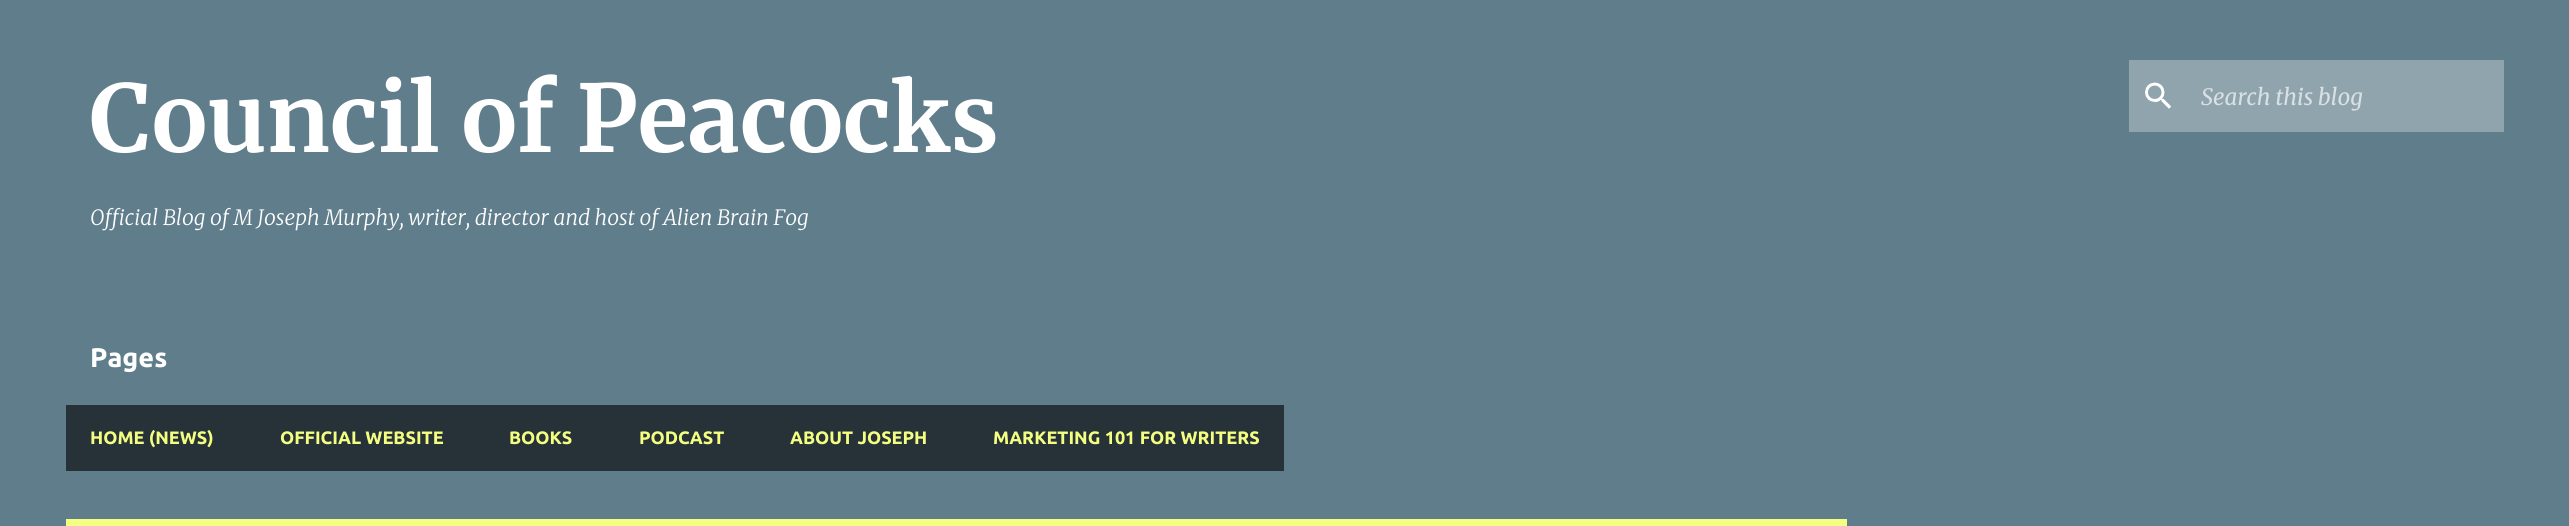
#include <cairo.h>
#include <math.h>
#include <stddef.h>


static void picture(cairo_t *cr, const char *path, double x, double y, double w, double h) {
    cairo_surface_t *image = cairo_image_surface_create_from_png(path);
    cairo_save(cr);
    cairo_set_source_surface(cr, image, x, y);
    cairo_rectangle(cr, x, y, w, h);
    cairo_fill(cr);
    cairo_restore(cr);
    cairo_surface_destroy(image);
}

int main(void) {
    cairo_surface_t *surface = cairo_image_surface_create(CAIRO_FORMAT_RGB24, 2569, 526);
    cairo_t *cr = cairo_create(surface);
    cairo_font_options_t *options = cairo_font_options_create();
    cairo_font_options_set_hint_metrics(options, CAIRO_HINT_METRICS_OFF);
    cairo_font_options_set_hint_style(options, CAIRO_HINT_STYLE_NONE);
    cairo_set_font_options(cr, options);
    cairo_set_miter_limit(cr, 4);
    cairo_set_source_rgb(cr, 0.376, 0.49, 0.545);
    cairo_paint(cr);
    cairo_select_font_face(cr, "Merriweather", CAIRO_FONT_SLANT_NORMAL, CAIRO_FONT_WEIGHT_BOLD);
    cairo_set_font_size(cr, 93);
    cairo_set_source_rgb(cr, 1, 1, 1);
    cairo_move_to(cr, 90, 152);
    cairo_show_text(cr, "Council of Peacocks");
    cairo_select_font_face(cr, "Merriweather Light", CAIRO_FONT_SLANT_ITALIC, CAIRO_FONT_WEIGHT_NORMAL);
    cairo_set_font_size(cr, 21);
    cairo_move_to(cr, 90, 225);
    cairo_show_text(cr, "Official Blog of M Joseph Murphy, writer, director and host of Alien Brain Fog");
    cairo_set_source_rgb(cr, 0.565, 0.643, 0.682);
    cairo_rectangle(cr, 2129, 60, 375, 72);
    cairo_fill(cr);
    picture(cr, "img1.png", 2145, 82, 27, 27);
    cairo_select_font_face(cr, "Merriweather", CAIRO_FONT_SLANT_ITALIC, CAIRO_FONT_WEIGHT_NORMAL);
    cairo_set_font_size(cr, 22.5);
    cairo_set_source_rgb(cr, 0.851, 0.878, 0.89);
    cairo_move_to(cr, 2201, 105);
    cairo_show_text(cr, "Search this blog");
    cairo_select_font_face(cr, "Ubuntu", CAIRO_FONT_SLANT_NORMAL, CAIRO_FONT_WEIGHT_BOLD);
    cairo_set_font_size(cr, 27);
    cairo_set_source_rgb(cr, 1, 1, 1);
    cairo_move_to(cr, 90, 367);
    cairo_show_text(cr, "Pages");
    cairo_set_source_rgb(cr, 0.149, 0.196, 0.22);
    cairo_rectangle(cr, 66, 405, 1218, 66);
    cairo_fill(cr);
    cairo_set_font_size(cr, 18);
    cairo_set_source_rgb(cr, 0.957, 1, 0.506);
    cairo_move_to(cr, 90, 444);
    cairo_show_text(cr, "HOME (NEWS)");
    cairo_move_to(cr, 280, 444);
    cairo_show_text(cr, "OFFICIAL WEBSITE");
    cairo_move_to(cr, 509, 444);
    cairo_show_text(cr, "BOOKS");
    cairo_move_to(cr, 639, 444);
    cairo_show_text(cr, "PODCAST");
    cairo_move_to(cr, 790, 444);
    cairo_show_text(cr, "ABOUT JOSEPH");
    cairo_move_to(cr, 993, 444);
    cairo_show_text(cr, "MARKETING 101 FOR WRITERS");
    cairo_rectangle(cr, 66, 519, 1781, 7);
    cairo_fill(cr);
    cairo_surface_write_to_png(surface, "page.png");
    cairo_font_options_destroy(options);
    cairo_destroy(cr);
    cairo_surface_destroy(surface);
    return 0;
}
